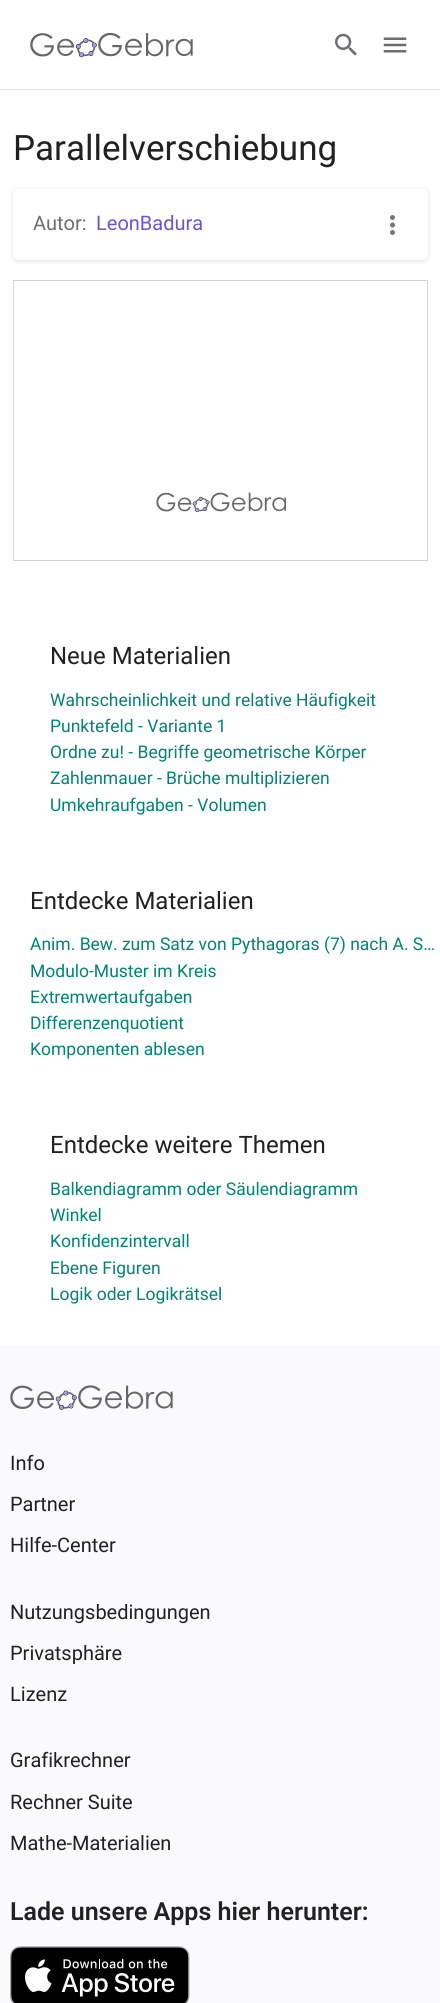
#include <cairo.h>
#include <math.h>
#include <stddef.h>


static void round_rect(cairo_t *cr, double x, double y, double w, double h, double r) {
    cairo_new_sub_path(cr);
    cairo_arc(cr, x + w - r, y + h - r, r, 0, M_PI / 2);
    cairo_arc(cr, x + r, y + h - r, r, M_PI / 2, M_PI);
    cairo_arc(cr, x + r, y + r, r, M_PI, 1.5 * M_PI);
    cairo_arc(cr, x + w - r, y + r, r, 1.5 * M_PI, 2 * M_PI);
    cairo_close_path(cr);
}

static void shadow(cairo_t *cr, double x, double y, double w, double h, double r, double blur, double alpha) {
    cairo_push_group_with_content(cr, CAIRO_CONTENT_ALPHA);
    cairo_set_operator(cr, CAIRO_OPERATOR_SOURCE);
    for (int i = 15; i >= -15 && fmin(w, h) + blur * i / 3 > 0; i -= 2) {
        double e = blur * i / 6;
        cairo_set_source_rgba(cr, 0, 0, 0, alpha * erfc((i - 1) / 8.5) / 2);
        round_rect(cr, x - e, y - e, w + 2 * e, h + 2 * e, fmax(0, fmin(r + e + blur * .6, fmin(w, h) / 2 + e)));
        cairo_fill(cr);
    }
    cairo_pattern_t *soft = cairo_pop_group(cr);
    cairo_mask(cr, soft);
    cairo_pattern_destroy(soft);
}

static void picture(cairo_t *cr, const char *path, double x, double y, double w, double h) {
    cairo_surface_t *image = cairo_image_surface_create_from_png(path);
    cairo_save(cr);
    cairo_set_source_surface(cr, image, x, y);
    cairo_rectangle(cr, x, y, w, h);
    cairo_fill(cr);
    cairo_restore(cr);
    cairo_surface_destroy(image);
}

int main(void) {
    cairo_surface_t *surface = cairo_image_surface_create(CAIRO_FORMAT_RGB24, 440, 2003);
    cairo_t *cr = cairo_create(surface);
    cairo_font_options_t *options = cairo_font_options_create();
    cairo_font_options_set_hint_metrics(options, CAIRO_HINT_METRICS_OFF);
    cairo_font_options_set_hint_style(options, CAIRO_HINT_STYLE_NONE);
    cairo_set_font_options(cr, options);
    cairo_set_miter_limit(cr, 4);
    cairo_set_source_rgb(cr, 1, 1, 1);
    cairo_paint(cr);
    cairo_set_source_rgb(cr, 0.902, 0.902, 0.922);
    cairo_rectangle(cr, 0, 89, 440, 1);
    cairo_fill(cr);
    picture(cr, "img1.png", 30, 33, 163, 25);
    picture(cr, "img2.png", 335, 33, 22, 23);
    picture(cr, "img3.png", 383, 37, 24, 16);
    cairo_select_font_face(cr, "Roboto", CAIRO_FONT_SLANT_NORMAL, CAIRO_FONT_WEIGHT_NORMAL);
    cairo_set_font_size(cr, 35);
    cairo_set_source_rgb(cr, 0.129, 0.129, 0.129);
    cairo_move_to(cr, 13, 160);
    cairo_show_text(cr, "Parallelverschiebung");
    cairo_set_source_rgb(cr, 0.11, 0.11, 0.122);
    shadow(cr, 13, 190, 415, 71, 5, 2.5, 0.14);
    cairo_set_source_rgb(cr, 1, 1, 1);
    round_rect(cr, 13, 189, 415, 71, 5);
    cairo_fill(cr);
    cairo_set_font_size(cr, 20);
    cairo_set_source_rgb(cr, 0.431, 0.427, 0.451);
    cairo_move_to(cr, 33, 230);
    cairo_show_text(cr, "Autor:");
    cairo_set_source_rgb(cr, 0.396, 0.341, 0.824);
    cairo_move_to(cr, 96, 230);
    cairo_show_text(cr, "LeonBadura");
    picture(cr, "img4.png", 390, 215, 5, 20);
    picture(cr, "img5.png", 156, 492, 130, 21);
    cairo_rectangle(cr, 13.5, 280.5, 414, 280);
    cairo_set_source_rgb(cr, 0.827, 0.827, 0.827);
    cairo_set_line_width(cr, 1);
    cairo_stroke(cr);
    cairo_set_font_size(cr, 24);
    cairo_set_source_rgb(cr, 0.129, 0.129, 0.129);
    cairo_move_to(cr, 50, 664);
    cairo_show_text(cr, "Neue Materialien");
    cairo_set_font_size(cr, 17.5);
    cairo_set_source_rgb(cr, 0, 0.518, 0.459);
    cairo_move_to(cr, 50, 706);
    cairo_show_text(cr, "Wahrscheinlichkeit und relative Häufigkeit");
    cairo_move_to(cr, 50, 732);
    cairo_show_text(cr, "Punktefeld - Variante 1");
    cairo_move_to(cr, 50, 758);
    cairo_show_text(cr, "Ordne zu! - Begriffe geometrische Körper");
    cairo_move_to(cr, 50, 784);
    cairo_show_text(cr, "Zahlenmauer - Brüche multiplizieren");
    cairo_move_to(cr, 50, 811);
    cairo_show_text(cr, "Umkehraufgaben - Volumen");
    cairo_set_font_size(cr, 24);
    cairo_set_source_rgb(cr, 0.129, 0.129, 0.129);
    cairo_move_to(cr, 30, 909);
    cairo_show_text(cr, "Entdecke Materialien");
    cairo_set_font_size(cr, 17.5);
    cairo_set_source_rgb(cr, 0, 0.518, 0.459);
    cairo_move_to(cr, 30, 950);
    cairo_show_text(cr, "Anim. Bew. zum Satz von Pythagoras (7) nach A. S…");
    cairo_move_to(cr, 30, 977);
    cairo_show_text(cr, "Modulo-Muster im Kreis");
    cairo_move_to(cr, 30, 1003);
    cairo_show_text(cr, "Extremwertaufgaben");
    cairo_move_to(cr, 30, 1029);
    cairo_show_text(cr, "Differenzenquotient");
    cairo_move_to(cr, 30, 1055);
    cairo_show_text(cr, "Komponenten ablesen");
    cairo_set_font_size(cr, 24);
    cairo_set_source_rgb(cr, 0.129, 0.129, 0.129);
    cairo_move_to(cr, 50, 1153);
    cairo_show_text(cr, "Entdecke weitere Themen");
    cairo_set_font_size(cr, 17.5);
    cairo_set_source_rgb(cr, 0, 0.518, 0.459);
    cairo_move_to(cr, 50, 1195);
    cairo_show_text(cr, "Balkendiagramm oder Säulendiagramm");
    cairo_move_to(cr, 50, 1221);
    cairo_show_text(cr, "Winkel");
    cairo_move_to(cr, 50, 1247);
    cairo_show_text(cr, "Konfidenzintervall");
    cairo_move_to(cr, 50, 1274);
    cairo_show_text(cr, "Ebene Figuren");
    cairo_move_to(cr, 50, 1300);
    cairo_show_text(cr, "Logik oder Logikrätsel");
    cairo_set_source_rgb(cr, 0.98, 0.98, 0.988);
    cairo_rectangle(cr, 0, 1345, 440, 658);
    cairo_fill(cr);
    picture(cr, "img6.png", 10, 1385, 163, 25);
    cairo_set_font_size(cr, 20);
    cairo_set_source_rgb(cr, 0.129, 0.129, 0.129);
    cairo_move_to(cr, 10, 1470);
    cairo_show_text(cr, "Info");
    cairo_move_to(cr, 10, 1511);
    cairo_show_text(cr, "Partner");
    cairo_move_to(cr, 10, 1552);
    cairo_show_text(cr, "Hilfe-Center");
    cairo_move_to(cr, 10, 1619);
    cairo_show_text(cr, "Nutzungsbedingungen");
    cairo_move_to(cr, 10, 1660);
    cairo_show_text(cr, "Privatsphäre");
    cairo_move_to(cr, 10, 1701);
    cairo_show_text(cr, "Lizenz");
    cairo_move_to(cr, 10, 1767);
    cairo_show_text(cr, "Grafikrechner");
    cairo_move_to(cr, 10, 1809);
    cairo_show_text(cr, "Rechner Suite");
    cairo_move_to(cr, 10, 1850);
    cairo_show_text(cr, "Mathe-Materialien");
    cairo_select_font_face(cr, "Roboto SemiBold", CAIRO_FONT_SLANT_NORMAL, CAIRO_FONT_WEIGHT_NORMAL);
    cairo_set_font_size(cr, 25);
    cairo_move_to(cr, 10, 1920);
    cairo_show_text(cr, "Lade unsere Apps hier herunter:");
    picture(cr, "img7.png", 10, 1946, 180, 57);
    cairo_surface_write_to_png(surface, "page.png");
    cairo_font_options_destroy(options);
    cairo_destroy(cr);
    cairo_surface_destroy(surface);
    return 0;
}
